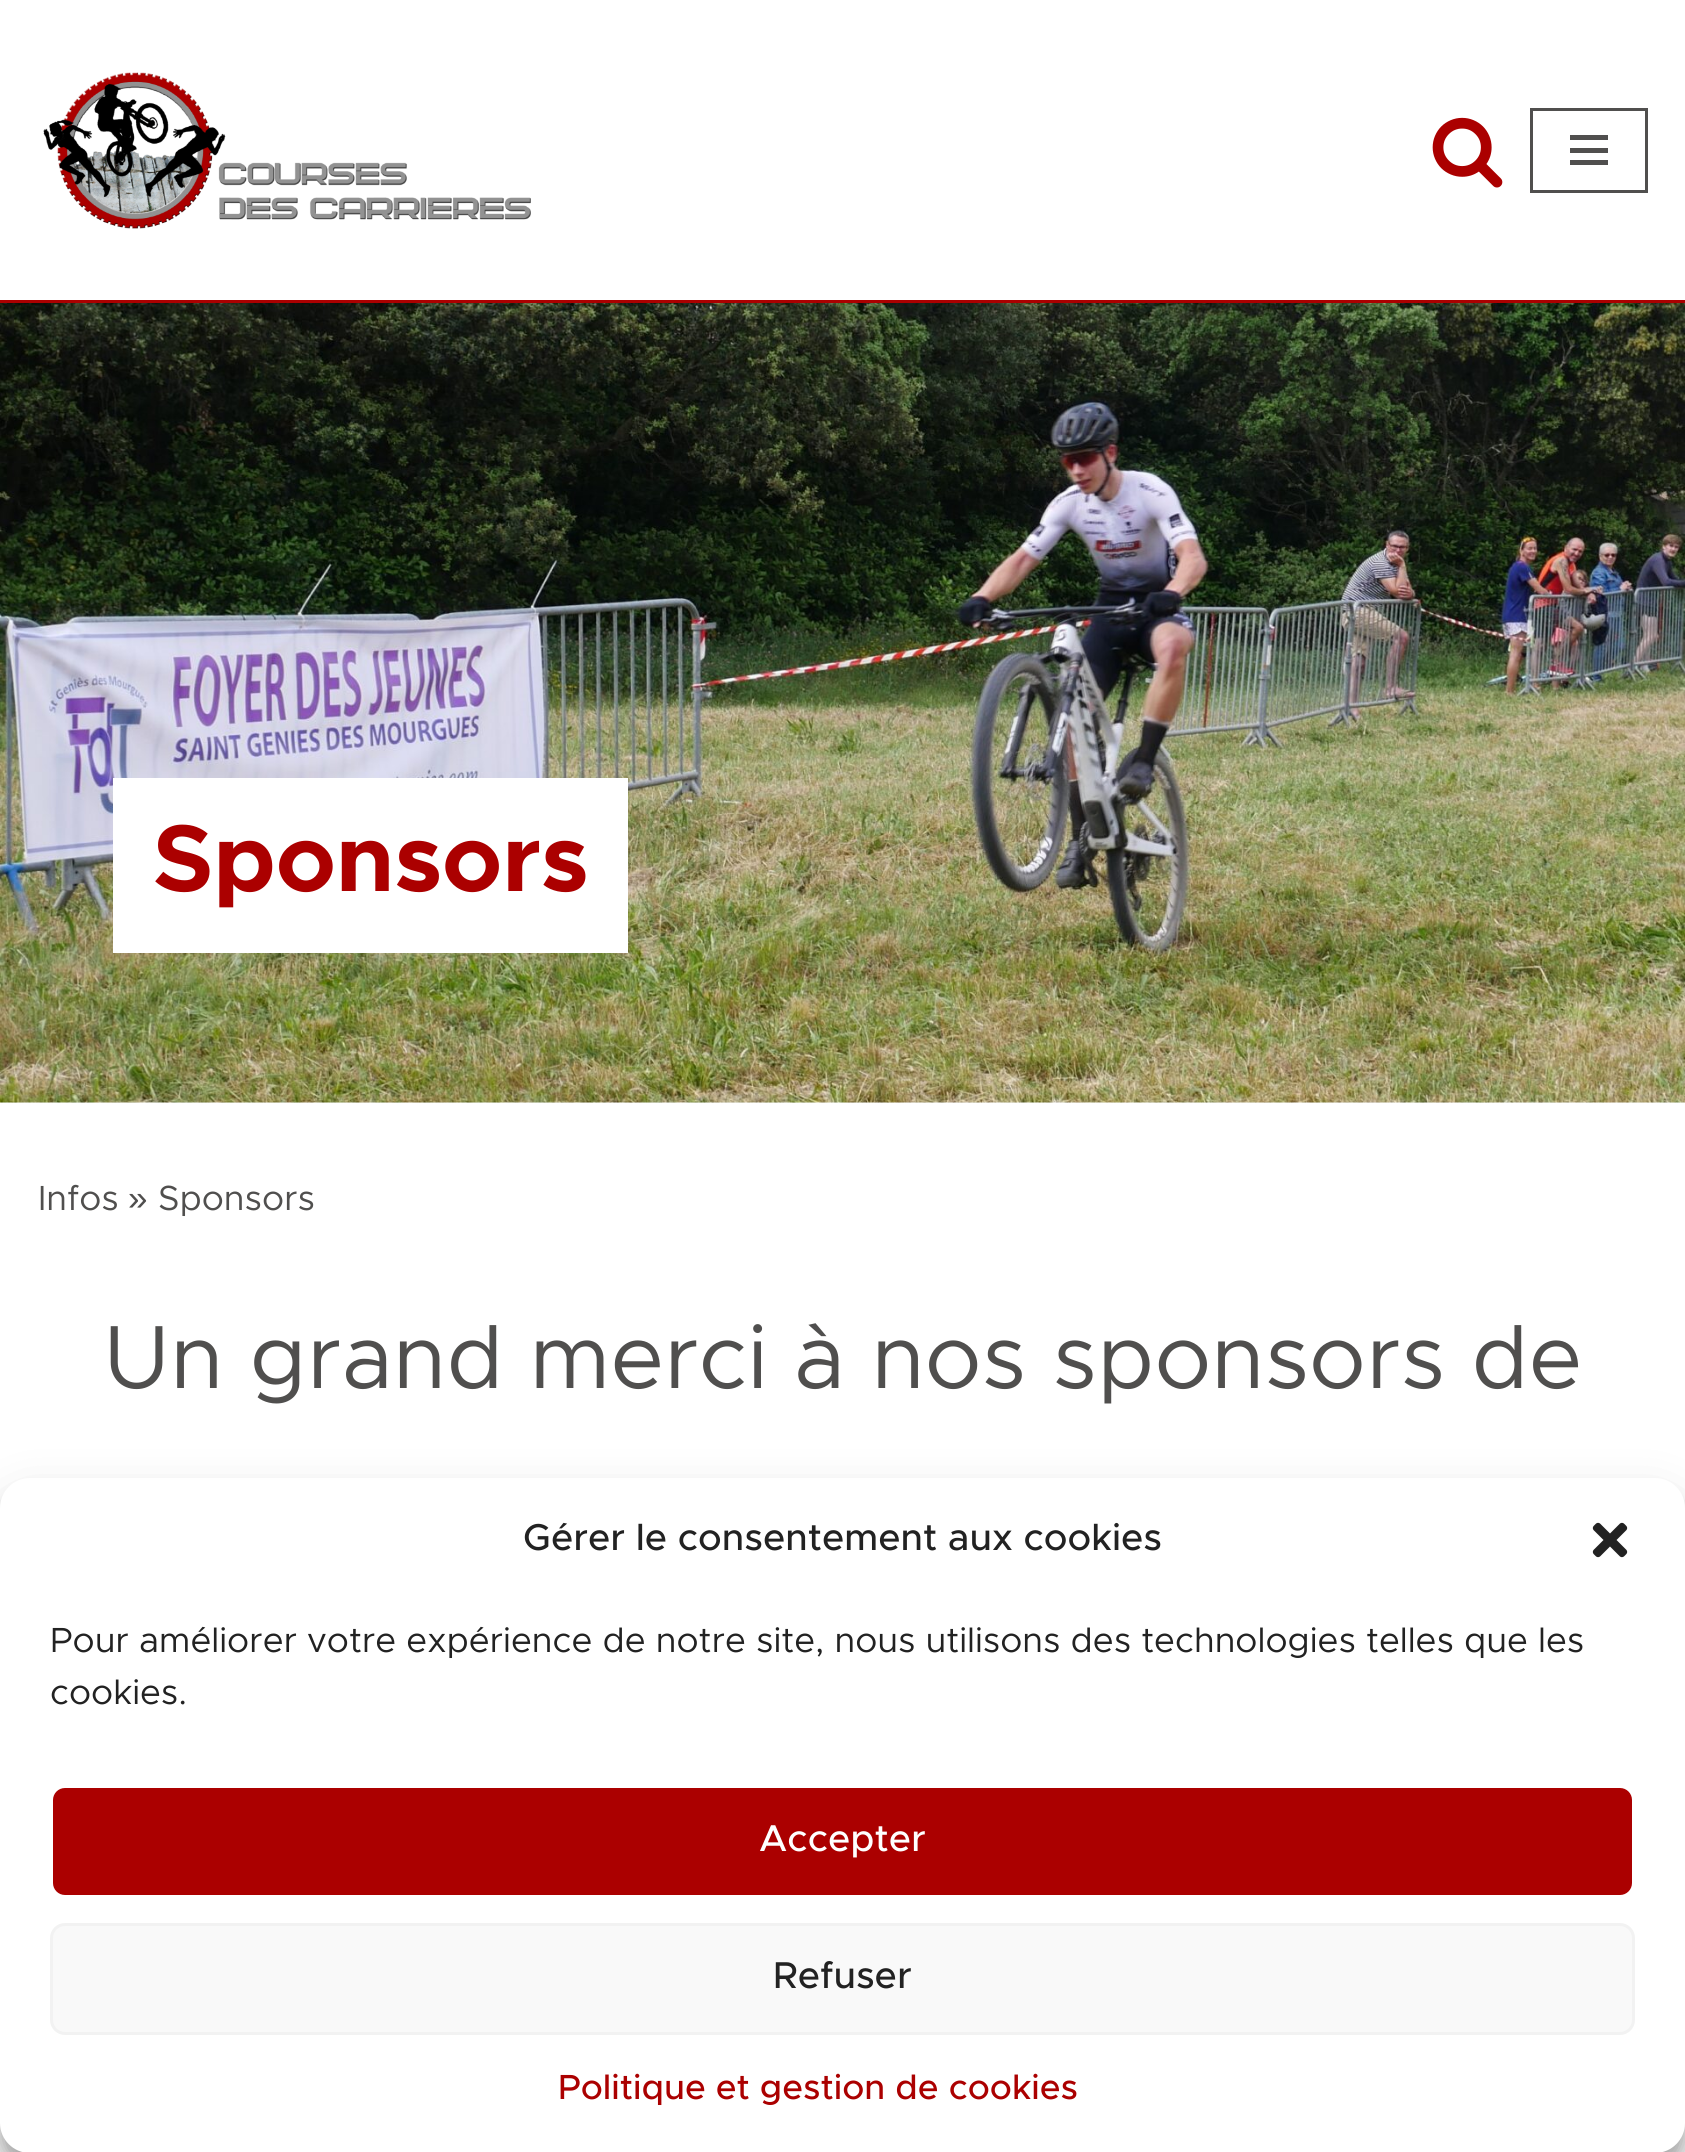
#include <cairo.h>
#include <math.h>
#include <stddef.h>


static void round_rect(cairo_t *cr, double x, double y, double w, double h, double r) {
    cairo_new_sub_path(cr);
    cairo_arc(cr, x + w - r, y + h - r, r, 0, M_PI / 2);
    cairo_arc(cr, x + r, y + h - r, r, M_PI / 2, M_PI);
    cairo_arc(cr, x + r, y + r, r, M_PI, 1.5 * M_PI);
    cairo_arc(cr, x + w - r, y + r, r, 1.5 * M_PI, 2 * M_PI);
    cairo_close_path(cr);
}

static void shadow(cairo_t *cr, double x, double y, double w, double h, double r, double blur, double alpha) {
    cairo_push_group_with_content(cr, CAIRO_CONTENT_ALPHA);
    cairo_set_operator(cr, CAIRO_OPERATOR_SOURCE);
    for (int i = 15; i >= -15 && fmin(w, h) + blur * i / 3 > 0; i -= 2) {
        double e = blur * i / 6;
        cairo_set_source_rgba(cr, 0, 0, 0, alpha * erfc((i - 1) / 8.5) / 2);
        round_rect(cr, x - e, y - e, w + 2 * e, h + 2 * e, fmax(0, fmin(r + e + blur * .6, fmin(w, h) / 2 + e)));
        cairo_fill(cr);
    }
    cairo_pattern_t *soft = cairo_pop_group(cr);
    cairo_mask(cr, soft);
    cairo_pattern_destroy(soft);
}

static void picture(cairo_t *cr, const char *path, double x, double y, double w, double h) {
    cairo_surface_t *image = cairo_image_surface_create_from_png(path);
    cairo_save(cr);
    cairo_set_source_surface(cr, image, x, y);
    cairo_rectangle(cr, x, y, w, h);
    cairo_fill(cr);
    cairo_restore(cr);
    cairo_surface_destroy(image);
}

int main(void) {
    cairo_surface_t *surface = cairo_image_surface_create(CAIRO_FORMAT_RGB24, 1685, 2152);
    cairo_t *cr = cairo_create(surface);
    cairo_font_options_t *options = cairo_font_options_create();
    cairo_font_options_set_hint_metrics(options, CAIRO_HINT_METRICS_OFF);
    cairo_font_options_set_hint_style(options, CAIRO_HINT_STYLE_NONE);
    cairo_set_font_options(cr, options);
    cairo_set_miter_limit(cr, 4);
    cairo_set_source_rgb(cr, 1, 1, 1);
    cairo_paint(cr);
    cairo_set_source_rgb(cr, 0.671, 0, 0);
    cairo_rectangle(cr, 0, 300, 1685, 3);
    cairo_fill(cr);
    picture(cr, "img1.png", 43, 72, 488, 157);
    picture(cr, "img2.png", 1432, 117, 71, 71);
    cairo_rectangle(cr, 1531.5, 109.5, 115, 82);
    cairo_set_source_rgb(cr, 0.314, 0.31, 0.306);
    cairo_set_line_width(cr, 3);
    cairo_stroke(cr);
    cairo_rectangle(cr, 1570, 135, 38, 5);
    cairo_fill(cr);
    cairo_rectangle(cr, 1570, 148, 38, 5);
    cairo_fill(cr);
    cairo_rectangle(cr, 1570, 160, 38, 5);
    cairo_fill(cr);
    cairo_set_source_rgb(cr, 0.957, 0.961, 0.969);
    cairo_rectangle(cr, 0, 1102, 1685, 1);
    cairo_fill(cr);
    picture(cr, "img3.png", 0, 303, 1685, 800);
    cairo_set_source_rgb(cr, 1, 1, 1);
    cairo_rectangle(cr, 113, 778, 515, 175);
    cairo_fill(cr);
    cairo_select_font_face(cr, "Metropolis", CAIRO_FONT_SLANT_NORMAL, CAIRO_FONT_WEIGHT_BOLD);
    cairo_set_font_size(cr, 95);
    cairo_set_source_rgb(cr, 0.671, 0, 0);
    cairo_move_to(cr, 153, 891);
    cairo_show_text(cr, "Sponsors");
    cairo_select_font_face(cr, "Metropolis", CAIRO_FONT_SLANT_NORMAL, CAIRO_FONT_WEIGHT_NORMAL);
    cairo_set_font_size(cr, 35);
    cairo_set_source_rgb(cr, 0.314, 0.31, 0.306);
    cairo_move_to(cr, 38, 1210);
    cairo_show_text(cr, "Infos");
    cairo_select_font_face(cr, "Liberation Sans", CAIRO_FONT_SLANT_NORMAL, CAIRO_FONT_WEIGHT_NORMAL);
    cairo_move_to(cr, 128, 1210);
    cairo_show_text(cr, "»");
    cairo_select_font_face(cr, "Metropolis", CAIRO_FONT_SLANT_NORMAL, CAIRO_FONT_WEIGHT_NORMAL);
    cairo_move_to(cr, 158, 1210);
    cairo_show_text(cr, "Sponsors");
    cairo_set_font_size(cr, 90);
    cairo_move_to(cr, 103, 1388);
    cairo_show_text(cr, "Un grand merci à nos sponsors de");
    cairo_set_source_rgb(cr, 0, 0, 0);
    shadow(cr, 0, 1493, 1685, 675, 30, 7.5, 0.23);
    shadow(cr, 0, 1503, 1685, 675, 30, 25, 0.19);
    cairo_set_source_rgb(cr, 1, 1, 1);
    round_rect(cr, 0, 1478, 1685, 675, 30);
    cairo_fill(cr);
    cairo_select_font_face(cr, "Metropolis Medium", CAIRO_FONT_SLANT_NORMAL, CAIRO_FONT_WEIGHT_NORMAL);
    cairo_set_font_size(cr, 37.5);
    cairo_set_source_rgb(cr, 0.133, 0.133, 0.133);
    cairo_move_to(cr, 523, 1550);
    cairo_show_text(cr, "Gérer le consentement aux cookies");
    picture(cr, "img4.png", 1592, 1522, 36, 36);
    cairo_select_font_face(cr, "Metropolis", CAIRO_FONT_SLANT_NORMAL, CAIRO_FONT_WEIGHT_NORMAL);
    cairo_set_font_size(cr, 35);
    cairo_move_to(cr, 50, 1652);
    cairo_show_text(cr, "Pour améliorer votre expérience de notre site, nous utilisons des technologies telles que les");
    cairo_move_to(cr, 50, 1704);
    cairo_show_text(cr, "cookies.");
    cairo_set_source_rgb(cr, 0.671, 0, 0);
    round_rect(cr, 51.5, 1786.5, 1582, 110, 13.5);
    cairo_fill_preserve(cr);
    cairo_set_source_rgb(cr, 1, 1, 1);
    cairo_stroke(cr);
    cairo_select_font_face(cr, "Metropolis Medium", CAIRO_FONT_SLANT_NORMAL, CAIRO_FONT_WEIGHT_NORMAL);
    cairo_set_font_size(cr, 37.5);
    cairo_move_to(cr, 759, 1851);
    cairo_show_text(cr, "Accepter");
    cairo_set_source_rgb(cr, 0.976, 0.976, 0.976);
    round_rect(cr, 51.5, 1924.5, 1582, 109, 13.5);
    cairo_fill_preserve(cr);
    cairo_set_source_rgb(cr, 0.949, 0.949, 0.949);
    cairo_stroke(cr);
    cairo_set_source_rgb(cr, 0.133, 0.133, 0.133);
    cairo_move_to(cr, 773, 1988);
    cairo_show_text(cr, "Refuser");
    cairo_set_font_size(cr, 35);
    cairo_set_source_rgb(cr, 0.671, 0, 0);
    cairo_move_to(cr, 558, 2099);
    cairo_show_text(cr, "Politique et gestion de cookies");
    cairo_surface_write_to_png(surface, "page.png");
    cairo_font_options_destroy(options);
    cairo_destroy(cr);
    cairo_surface_destroy(surface);
    return 0;
}
